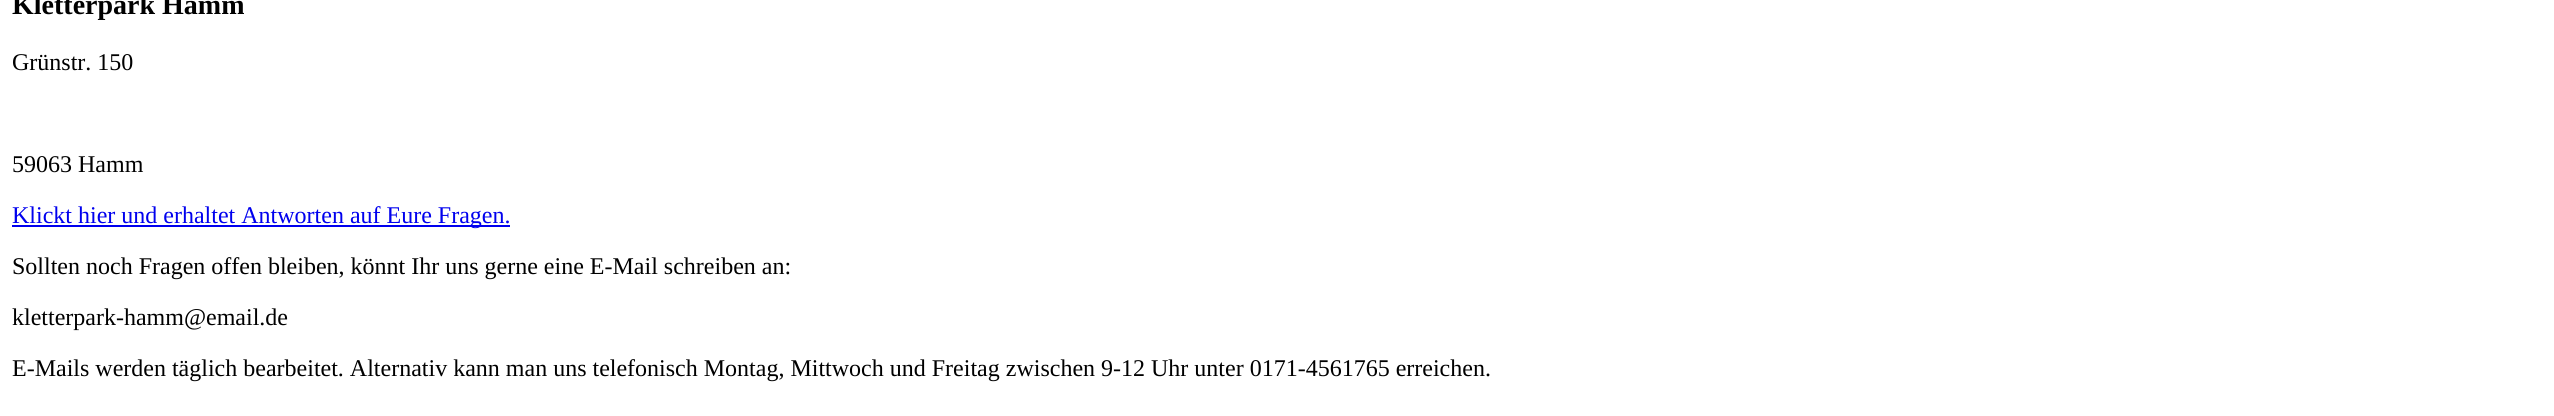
#include <cairo.h>
#include <math.h>
#include <stddef.h>


int main(void) {
    cairo_surface_t *surface = cairo_image_surface_create(CAIRO_FORMAT_RGB24, 2554, 416);
    cairo_t *cr = cairo_create(surface);
    cairo_font_options_t *options = cairo_font_options_create();
    cairo_font_options_set_hint_metrics(options, CAIRO_HINT_METRICS_OFF);
    cairo_font_options_set_hint_style(options, CAIRO_HINT_STYLE_NONE);
    cairo_set_font_options(cr, options);
    cairo_set_miter_limit(cr, 4);
    cairo_set_source_rgb(cr, 1, 1, 1);
    cairo_paint(cr);
    cairo_select_font_face(cr, "Liberation Serif", CAIRO_FONT_SLANT_NORMAL, CAIRO_FONT_WEIGHT_BOLD);
    cairo_set_font_size(cr, 28);
    cairo_set_source_rgb(cr, 0, 0, 0);
    cairo_move_to(cr, 12, 14);
    cairo_show_text(cr, "Kletterpark Hamm");
    cairo_select_font_face(cr, "Liberation Serif", CAIRO_FONT_SLANT_NORMAL, CAIRO_FONT_WEIGHT_NORMAL);
    cairo_set_font_size(cr, 24);
    cairo_move_to(cr, 12, 70);
    cairo_show_text(cr, "Grünstr. 150");
    cairo_move_to(cr, 12, 172);
    cairo_show_text(cr, "59063 Hamm");
    cairo_set_source_rgb(cr, 0, 0, 0.933);
    cairo_rectangle(cr, 12, 225, 498, 2);
    cairo_fill(cr);
    cairo_move_to(cr, 12, 223);
    cairo_show_text(cr, "Klickt hier und erhaltet Antworten auf Eure Fragen.");
    cairo_set_source_rgb(cr, 0, 0, 0);
    cairo_move_to(cr, 12, 274);
    cairo_show_text(cr, "Sollten noch Fragen offen bleiben, könnt Ihr uns gerne eine E-Mail schreiben an:");
    cairo_move_to(cr, 12, 325);
    cairo_show_text(cr, "kletterpark-hamm@email.de");
    cairo_move_to(cr, 12, 376);
    cairo_show_text(cr, "E-Mails werden täglich bearbeitet. Alternativ kann man uns telefonisch Montag, Mittwoch und Freitag zwischen 9-12 Uhr unter 0171-4561765 erreichen.");
    cairo_surface_write_to_png(surface, "page.png");
    cairo_font_options_destroy(options);
    cairo_destroy(cr);
    cairo_surface_destroy(surface);
    return 0;
}
